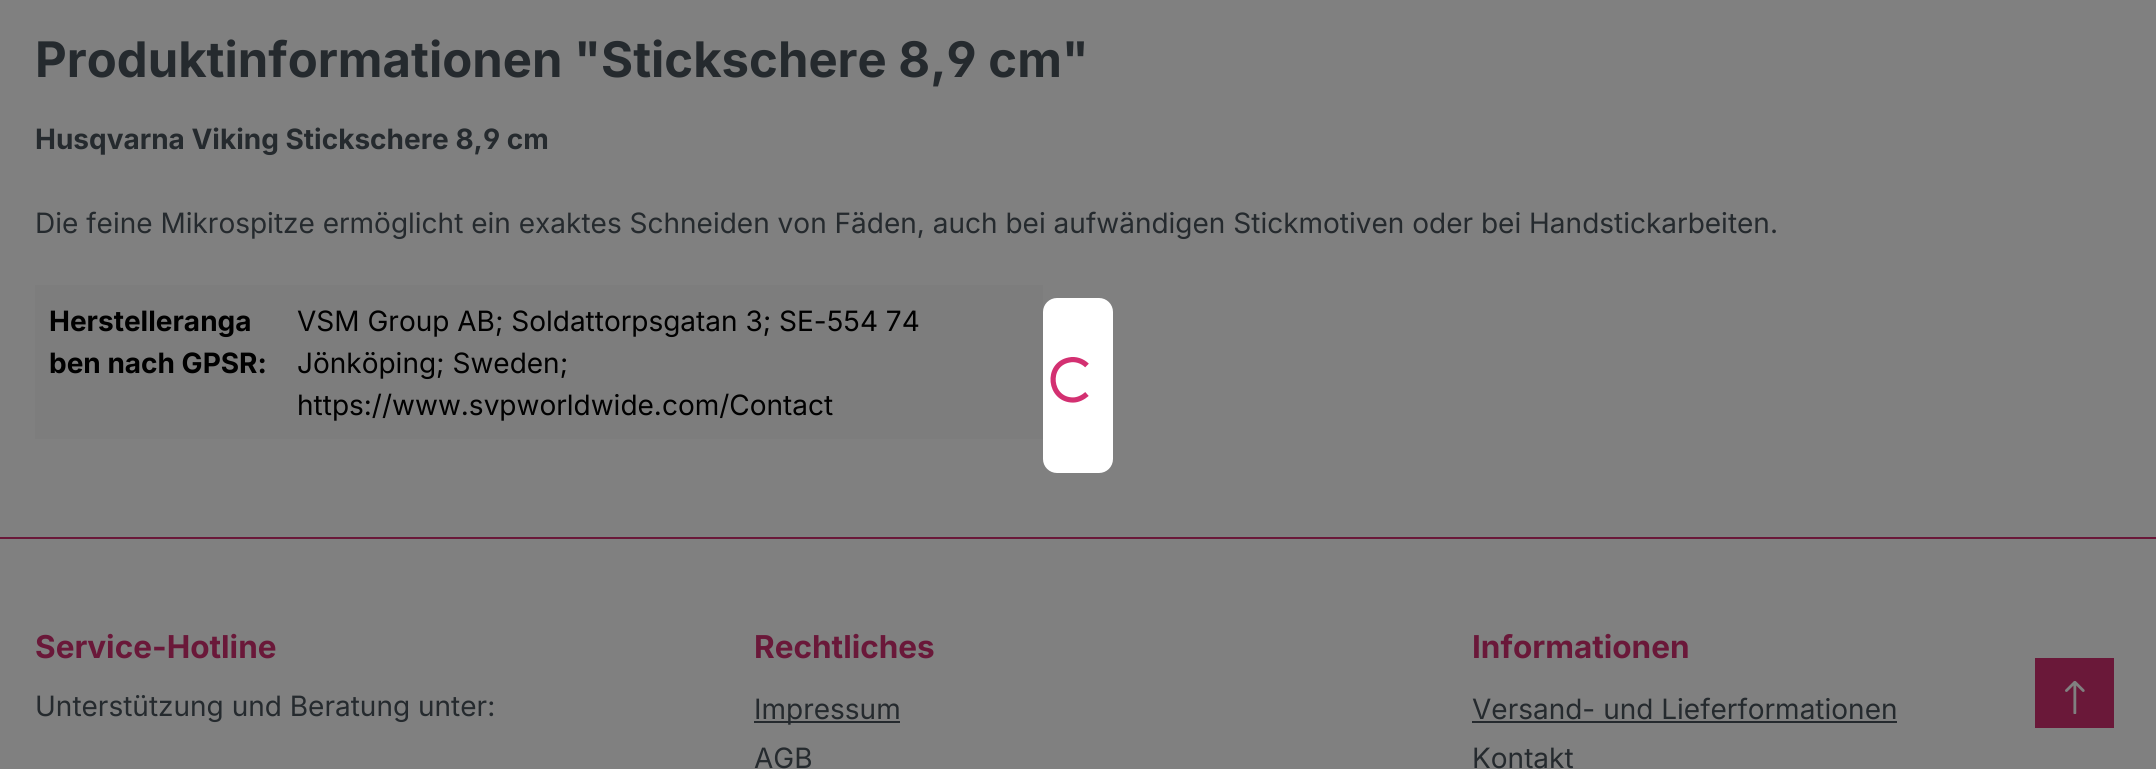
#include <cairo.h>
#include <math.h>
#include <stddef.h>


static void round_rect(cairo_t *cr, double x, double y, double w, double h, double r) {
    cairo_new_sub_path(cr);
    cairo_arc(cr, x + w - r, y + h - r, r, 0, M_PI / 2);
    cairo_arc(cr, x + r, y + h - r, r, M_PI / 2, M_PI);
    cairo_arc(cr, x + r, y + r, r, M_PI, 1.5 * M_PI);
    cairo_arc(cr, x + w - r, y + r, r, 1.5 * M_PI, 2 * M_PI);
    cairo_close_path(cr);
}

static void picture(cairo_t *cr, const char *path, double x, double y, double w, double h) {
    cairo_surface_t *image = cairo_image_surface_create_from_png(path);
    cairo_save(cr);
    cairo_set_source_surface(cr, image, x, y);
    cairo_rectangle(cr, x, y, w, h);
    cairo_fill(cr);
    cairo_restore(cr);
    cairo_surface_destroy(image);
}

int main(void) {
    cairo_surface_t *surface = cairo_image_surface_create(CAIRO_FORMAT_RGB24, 2156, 769);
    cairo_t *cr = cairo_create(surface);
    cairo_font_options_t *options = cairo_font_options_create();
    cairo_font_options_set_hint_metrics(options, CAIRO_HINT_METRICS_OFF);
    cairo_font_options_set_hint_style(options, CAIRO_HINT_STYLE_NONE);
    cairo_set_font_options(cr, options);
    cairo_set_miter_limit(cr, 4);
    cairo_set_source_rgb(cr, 0.502, 0.502, 0.502);
    cairo_paint(cr);
    cairo_select_font_face(cr, "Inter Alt", CAIRO_FONT_SLANT_NORMAL, CAIRO_FONT_WEIGHT_BOLD);
    cairo_set_font_size(cr, 49);
    cairo_set_source_rgb(cr, 0.145, 0.165, 0.18);
    cairo_move_to(cr, 35, 77);
    cairo_show_text(cr, "Produktinformationen \"Stickschere 8,9 cm\"");
    cairo_set_font_size(cr, 28);
    cairo_move_to(cr, 35, 149);
    cairo_show_text(cr, "Husqvarna Viking Stickschere 8,9 cm");
    cairo_select_font_face(cr, "Inter", CAIRO_FONT_SLANT_NORMAL, CAIRO_FONT_WEIGHT_NORMAL);
    cairo_move_to(cr, 35, 233);
    cairo_show_text(cr, "Die feine Mikrospitze ermöglicht ein exaktes Schneiden von Fäden, auch bei aufwändigen Stickmotiven oder bei Handstickarbeiten.");
    cairo_set_source_rgb(cr, 0.49, 0.49, 0.49);
    cairo_rectangle(cr, 35, 285, 1008, 154);
    cairo_fill(cr);
    cairo_select_font_face(cr, "Inter", CAIRO_FONT_SLANT_NORMAL, CAIRO_FONT_WEIGHT_BOLD);
    cairo_set_source_rgb(cr, 0, 0, 0);
    cairo_move_to(cr, 49, 331);
    cairo_show_text(cr, "Herstelleranga");
    cairo_move_to(cr, 49, 373);
    cairo_show_text(cr, "ben nach GPSR:");
    cairo_select_font_face(cr, "Inter", CAIRO_FONT_SLANT_NORMAL, CAIRO_FONT_WEIGHT_NORMAL);
    cairo_move_to(cr, 297, 331);
    cairo_show_text(cr, "VSM Group AB; Soldattorpsgatan 3; SE-554 74");
    cairo_move_to(cr, 297, 373);
    cairo_show_text(cr, "Jönköping; Sweden;");
    cairo_move_to(cr, 297, 415);
    cairo_show_text(cr, "https://www.svpworldwide.com/Contact");
    cairo_set_source_rgb(cr, 1, 1, 1);
    round_rect(cr, 1043, 298, 70, 175, 14);
    cairo_fill(cr);
    cairo_new_path(cr);
    cairo_move_to(cr, 1087, 394);
    cairo_curve_to(cr, 1083, 397.5, 1078, 400, 1073, 400);
    cairo_curve_to(cr, 1049, 400, 1045.5, 364.5, 1069, 360);
    cairo_curve_to(cr, 1075.5, 358.5, 1082.5, 361, 1087, 365.5);
    cairo_set_source_rgb(cr, 0.827, 0.188, 0.443);
    cairo_set_line_width(cr, 5.2);
    cairo_stroke(cr);
    cairo_set_source_rgb(cr, 0.416, 0.094, 0.224);
    cairo_rectangle(cr, 0, 537, 2156, 2);
    cairo_fill(cr);
    cairo_select_font_face(cr, "Inter", CAIRO_FONT_SLANT_NORMAL, CAIRO_FONT_WEIGHT_BOLD);
    cairo_set_font_size(cr, 31.5);
    cairo_move_to(cr, 35, 658);
    cairo_show_text(cr, "Service-Hotline");
    cairo_select_font_face(cr, "Inter", CAIRO_FONT_SLANT_NORMAL, CAIRO_FONT_WEIGHT_NORMAL);
    cairo_set_font_size(cr, 28);
    cairo_set_source_rgb(cr, 0.145, 0.165, 0.18);
    cairo_move_to(cr, 35, 716);
    cairo_show_text(cr, "Unterstützung und Beratung unter:");
    cairo_select_font_face(cr, "Inter", CAIRO_FONT_SLANT_NORMAL, CAIRO_FONT_WEIGHT_BOLD);
    cairo_set_font_size(cr, 31.5);
    cairo_set_source_rgb(cr, 0.416, 0.094, 0.224);
    cairo_move_to(cr, 754, 658);
    cairo_show_text(cr, "Rechtliches");
    cairo_set_source_rgb(cr, 0.145, 0.165, 0.18);
    cairo_rectangle(cr, 754, 721, 146, 2);
    cairo_fill(cr);
    cairo_select_font_face(cr, "Inter", CAIRO_FONT_SLANT_NORMAL, CAIRO_FONT_WEIGHT_NORMAL);
    cairo_set_font_size(cr, 28);
    cairo_move_to(cr, 754, 719);
    cairo_show_text(cr, "Impressum");
    cairo_move_to(cr, 754, 768);
    cairo_show_text(cr, "AGB");
    cairo_select_font_face(cr, "Inter", CAIRO_FONT_SLANT_NORMAL, CAIRO_FONT_WEIGHT_BOLD);
    cairo_set_font_size(cr, 31.5);
    cairo_set_source_rgb(cr, 0.416, 0.094, 0.224);
    cairo_move_to(cr, 1472, 658);
    cairo_show_text(cr, "Informationen");
    cairo_select_font_face(cr, "Inter", CAIRO_FONT_SLANT_NORMAL, CAIRO_FONT_WEIGHT_NORMAL);
    cairo_set_font_size(cr, 28);
    cairo_set_source_rgb(cr, 0.145, 0.165, 0.18);
    cairo_move_to(cr, 1472, 719);
    cairo_show_text(cr, "Versand- und Lieferformationen");
    cairo_rectangle(cr, 1472, 721, 425, 2);
    cairo_fill(cr);
    cairo_move_to(cr, 1472, 768);
    cairo_show_text(cr, "Kontakt");
    cairo_set_source_rgb(cr, 0.416, 0.094, 0.224);
    cairo_rectangle(cr, 2035, 658, 79, 70);
    cairo_fill(cr);
    picture(cr, "img1.png", 2065, 681, 20, 33);
    cairo_surface_write_to_png(surface, "page.png");
    cairo_font_options_destroy(options);
    cairo_destroy(cr);
    cairo_surface_destroy(surface);
    return 0;
}
